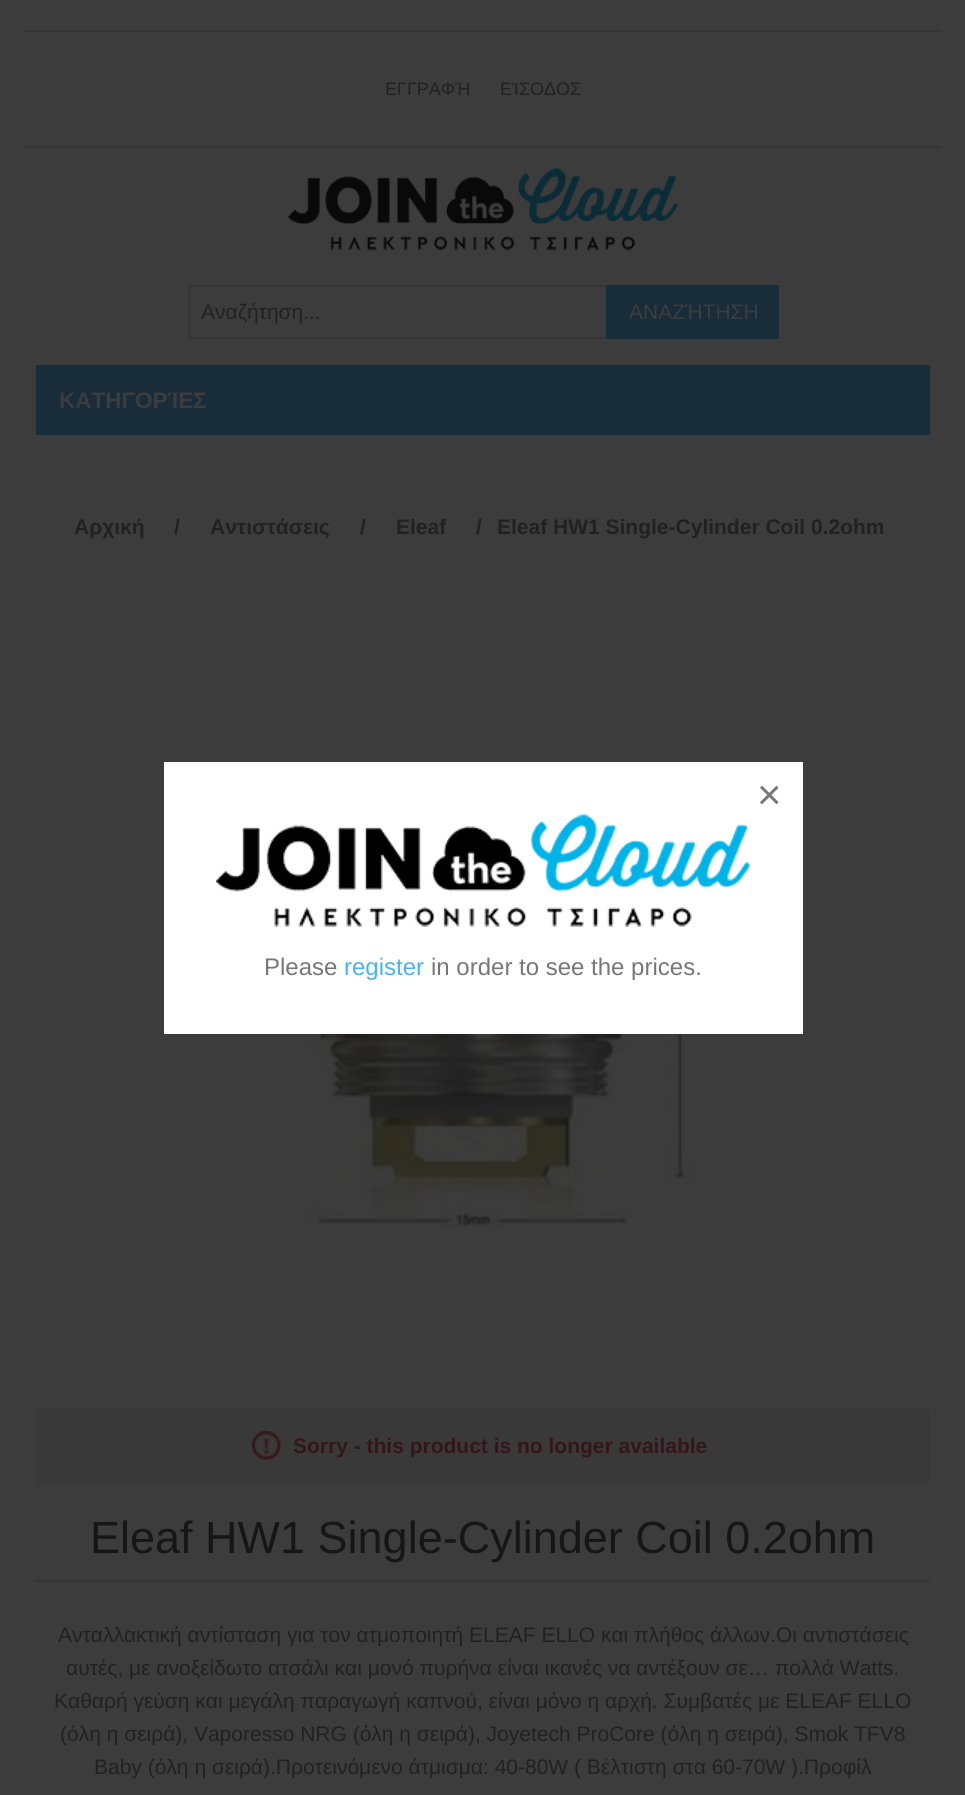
#include <cairo.h>
#include <math.h>
#include <stddef.h>


static void picture(cairo_t *cr, const char *path, double x, double y, double w, double h) {
    cairo_surface_t *image = cairo_image_surface_create_from_png(path);
    cairo_save(cr);
    cairo_set_source_surface(cr, image, x, y);
    cairo_rectangle(cr, x, y, w, h);
    cairo_fill(cr);
    cairo_restore(cr);
    cairo_surface_destroy(image);
}

int main(void) {
    cairo_surface_t *surface = cairo_image_surface_create(CAIRO_FORMAT_RGB24, 965, 1795);
    cairo_t *cr = cairo_create(surface);
    cairo_font_options_t *options = cairo_font_options_create();
    cairo_font_options_set_hint_metrics(options, CAIRO_HINT_METRICS_OFF);
    cairo_font_options_set_hint_style(options, CAIRO_HINT_STYLE_NONE);
    cairo_set_font_options(cr, options);
    cairo_set_miter_limit(cr, 4);
    cairo_set_source_rgb(cr, 0.235, 0.235, 0.235);
    cairo_paint(cr);
    cairo_set_source_rgb(cr, 0.208, 0.208, 0.208);
    cairo_rectangle(cr, 24, 146, 918, 2);
    cairo_fill(cr);
    cairo_rectangle(cr, 24, 30, 918, 2);
    cairo_fill(cr);
    cairo_select_font_face(cr, "Liberation Sans", CAIRO_FONT_SLANT_NORMAL, CAIRO_FONT_WEIGHT_NORMAL);
    cairo_set_font_size(cr, 18);
    cairo_set_source_rgb(cr, 0.129, 0.129, 0.129);
    cairo_move_to(cr, 385, 95);
    cairo_show_text(cr, "ΕΓΓΡΑΦΉ");
    cairo_move_to(cr, 500, 95);
    cairo_show_text(cr, "ΕΊΣΟΔΟΣ");
    picture(cr, "img1.png", 288, 168, 390, 83);
    cairo_rectangle(cr, 189, 286, 418, 52);
    cairo_set_source_rgb(cr, 0.208, 0.208, 0.208);
    cairo_stroke(cr);
    cairo_set_font_size(cr, 21);
    cairo_set_source_rgb(cr, 0.129, 0.129, 0.129);
    cairo_move_to(cr, 201, 319);
    cairo_show_text(cr, "Αναζήτηση...");
    cairo_set_source_rgb(cr, 0.094, 0.173, 0.224);
    cairo_rectangle(cr, 606, 285, 173, 54);
    cairo_fill(cr);
    cairo_set_source_rgb(cr, 0.235, 0.235, 0.235);
    cairo_move_to(cr, 629, 319);
    cairo_show_text(cr, "ΑΝΑΖΉΤΗΣΗ");
    cairo_set_source_rgb(cr, 0.094, 0.173, 0.224);
    cairo_rectangle(cr, 36, 365, 894, 70);
    cairo_fill(cr);
    cairo_select_font_face(cr, "Liberation Sans", CAIRO_FONT_SLANT_NORMAL, CAIRO_FONT_WEIGHT_BOLD);
    cairo_set_font_size(cr, 22.5);
    cairo_set_source_rgb(cr, 0.235, 0.235, 0.235);
    cairo_move_to(cr, 59, 408);
    cairo_show_text(cr, "ΚΑΤΗΓΟΡΊΕΣ");
    cairo_set_font_size(cr, 21);
    cairo_set_source_rgb(cr, 0.129, 0.129, 0.129);
    cairo_move_to(cr, 74, 534);
    cairo_show_text(cr, "Αρχική");
    cairo_move_to(cr, 174, 534);
    cairo_show_text(cr, "/");
    cairo_move_to(cr, 210, 534);
    cairo_show_text(cr, "Αντιστάσεις");
    cairo_move_to(cr, 360, 534);
    cairo_show_text(cr, "/");
    cairo_move_to(cr, 396, 534);
    cairo_show_text(cr, "Eleaf");
    cairo_move_to(cr, 476, 534);
    cairo_show_text(cr, "/");
    cairo_move_to(cr, 497, 534);
    cairo_show_text(cr, "Eleaf HW1 Single-Cylinder Coil 0.2ohm");
    picture(cr, "img2.png", 311, 1034, 386, 193);
    cairo_set_source_rgb(cr, 0.224, 0.224, 0.224);
    cairo_rectangle(cr, 36, 1409, 894, 75);
    cairo_fill(cr);
    picture(cr, "img3.png", 252, 1431, 29, 29);
    cairo_set_source_rgb(cr, 0.208, 0.086, 0.094);
    cairo_move_to(cr, 293, 1453);
    cairo_show_text(cr, "Sorry - this product is no longer available");
    cairo_set_source_rgb(cr, 0.208, 0.208, 0.208);
    cairo_rectangle(cr, 36, 1580, 894, 2);
    cairo_fill(cr);
    cairo_select_font_face(cr, "Liberation Sans", CAIRO_FONT_SLANT_NORMAL, CAIRO_FONT_WEIGHT_NORMAL);
    cairo_set_font_size(cr, 45);
    cairo_set_source_rgb(cr, 0.086, 0.086, 0.086);
    cairo_move_to(cr, 90, 1553);
    cairo_show_text(cr, "Eleaf HW1 Single-Cylinder Coil 0.2ohm");
    cairo_set_font_size(cr, 21);
    cairo_set_source_rgb(cr, 0.129, 0.129, 0.129);
    cairo_move_to(cr, 58, 1642);
    cairo_show_text(cr, "Ανταλλακτική αντίσταση για τον ατμοποιητή ELEAF ELLO και πλήθος άλλων.Οι αντιστάσεις");
    cairo_move_to(cr, 66, 1675);
    cairo_show_text(cr, "αυτές, με ανοξείδωτο ατσάλι και μονό πυρήνα είναι ικανές να αντέξουν σε… πολλά Watts.");
    cairo_move_to(cr, 54, 1708);
    cairo_show_text(cr, "Καθαρή γεύση και μεγάλη παραγωγή καπνού, είναι μόνο η αρχή. Συμβατές με ELEAF ELLO");
    cairo_move_to(cr, 60, 1741);
    cairo_show_text(cr, "(όλη η σειρά), Vaporesso NRG (όλη η σειρά), Joyetech ProCore (όλη η σειρά), Smok TFV8");
    cairo_move_to(cr, 94, 1774);
    cairo_show_text(cr, "Baby (όλη η σειρά).Προτεινόμενο άτμισμα: 40-80W ( Βέλτιστη στα 60-70W ).Προφίλ");
    cairo_set_source_rgb(cr, 1, 1, 1);
    cairo_rectangle(cr, 164, 762, 639, 272);
    cairo_fill(cr);
    cairo_set_font_size(cr, 42);
    cairo_set_source_rgb(cr, 0.467, 0.467, 0.467);
    cairo_move_to(cr, 757, 809);
    cairo_show_text(cr, "×");
    picture(cr, "img4.png", 216, 814, 534, 113);
    cairo_set_font_size(cr, 24);
    cairo_move_to(cr, 264, 975);
    cairo_show_text(cr, "Please");
    cairo_set_source_rgb(cr, 0.29, 0.698, 0.945);
    cairo_move_to(cr, 344, 975);
    cairo_show_text(cr, "register");
    cairo_set_source_rgb(cr, 0.467, 0.467, 0.467);
    cairo_move_to(cr, 431, 975);
    cairo_show_text(cr, "in order to see the prices.");
    cairo_surface_write_to_png(surface, "page.png");
    cairo_font_options_destroy(options);
    cairo_destroy(cr);
    cairo_surface_destroy(surface);
    return 0;
}
